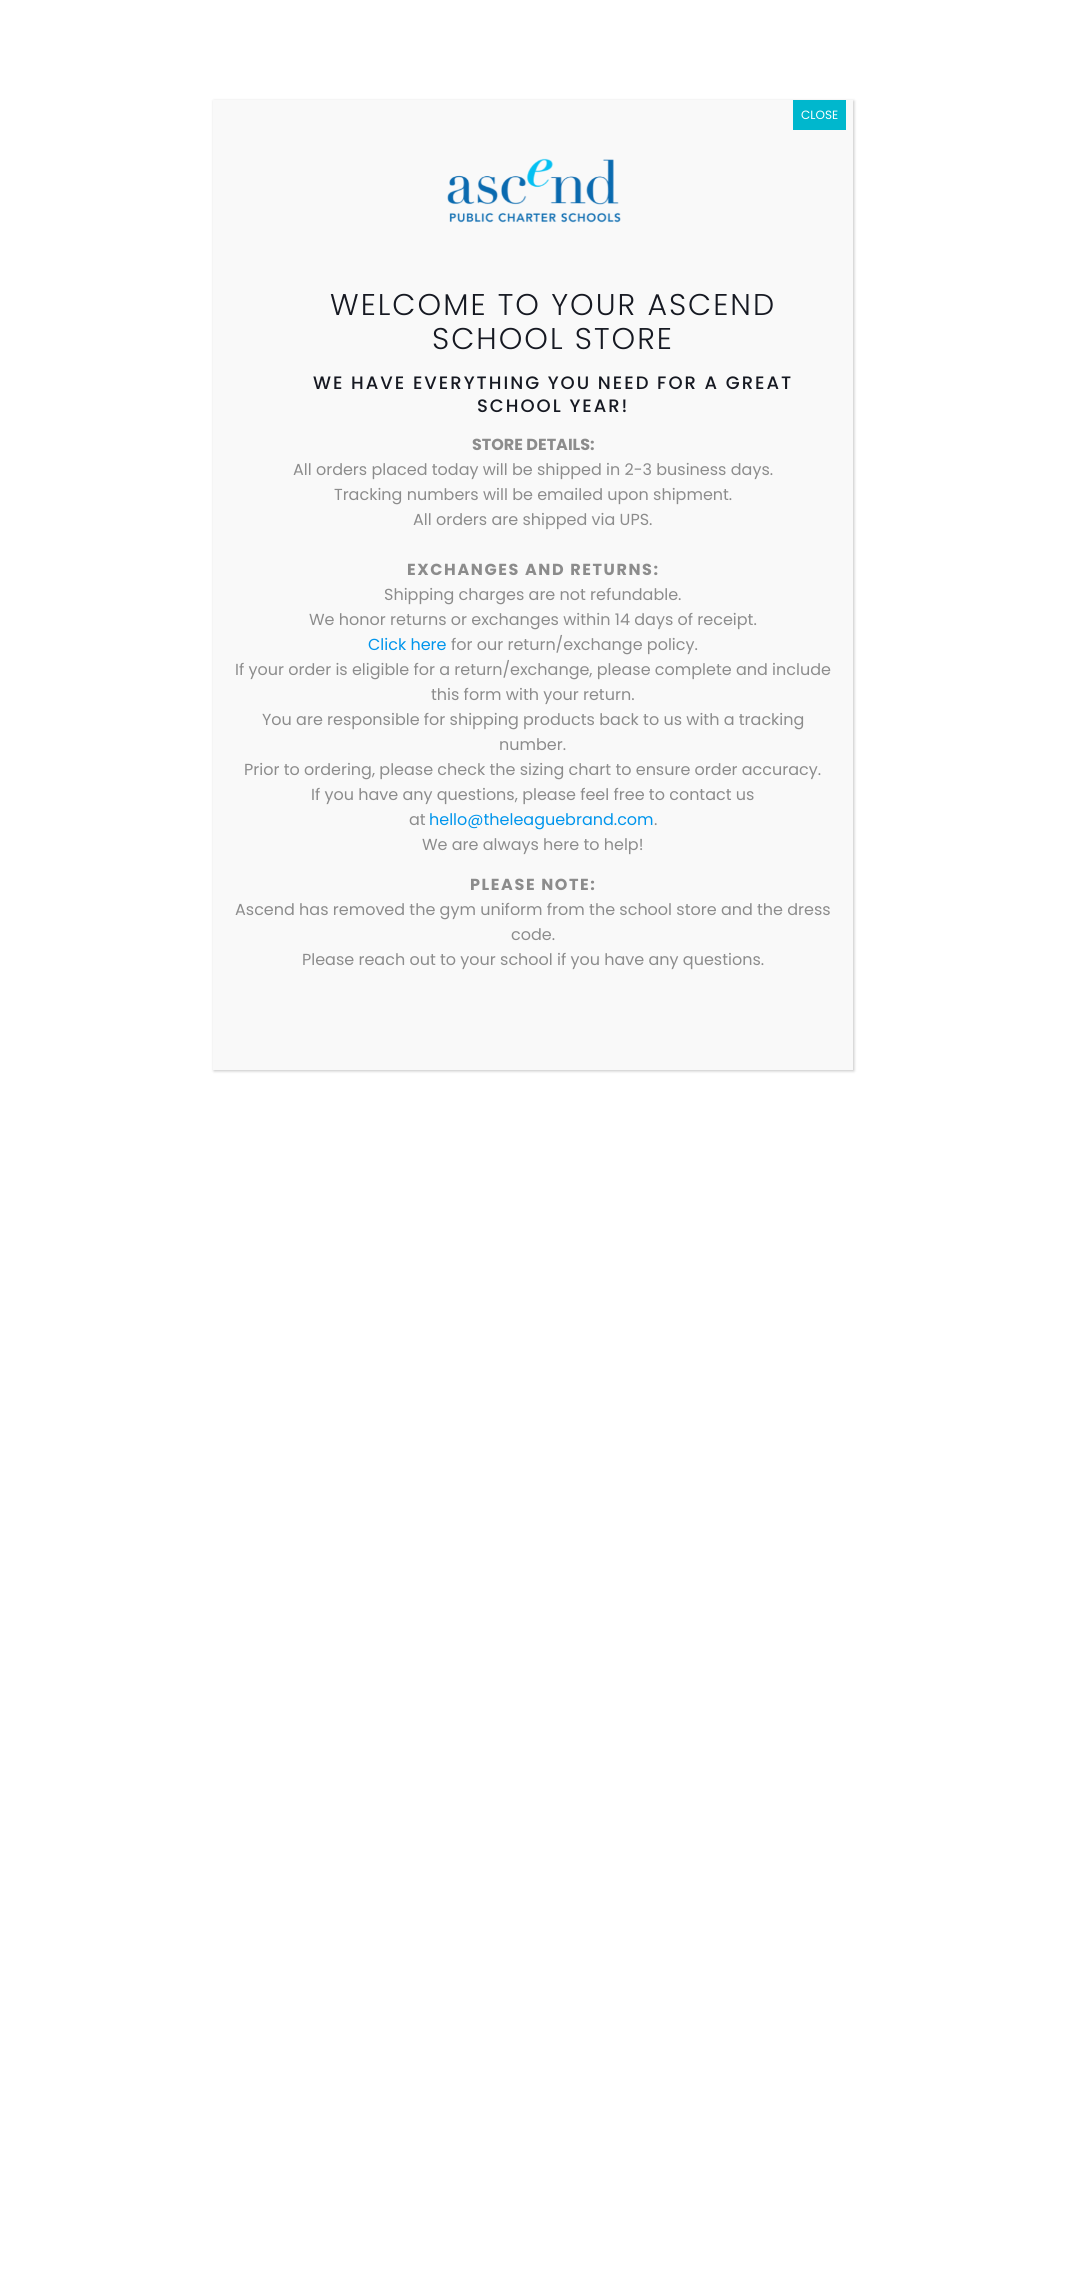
#include <cairo.h>
#include <math.h>
#include <stddef.h>


static void spaced_text(cairo_t *cr, double x, double y, const char *s, double letter, double word) {
    cairo_move_to(cr, x, y);
    while (*s) {
        char ch[5] = {0};
        int n = 0;
        do ch[n++] = *s++; while ((*s & 0xC0) == 0x80);
        cairo_show_text(cr, ch);
        cairo_rel_move_to(cr, letter + word * (*ch == ' '), 0);
    }
}

static void round_rect(cairo_t *cr, double x, double y, double w, double h, double r) {
    cairo_new_sub_path(cr);
    cairo_arc(cr, x + w - r, y + h - r, r, 0, M_PI / 2);
    cairo_arc(cr, x + r, y + h - r, r, M_PI / 2, M_PI);
    cairo_arc(cr, x + r, y + r, r, M_PI, 1.5 * M_PI);
    cairo_arc(cr, x + w - r, y + r, r, 1.5 * M_PI, 2 * M_PI);
    cairo_close_path(cr);
}

static void shadow(cairo_t *cr, double x, double y, double w, double h, double r, double blur, double alpha) {
    cairo_push_group_with_content(cr, CAIRO_CONTENT_ALPHA);
    cairo_set_operator(cr, CAIRO_OPERATOR_SOURCE);
    for (int i = 15; i >= -15 && fmin(w, h) + blur * i / 3 > 0; i -= 2) {
        double e = blur * i / 6;
        cairo_set_source_rgba(cr, 0, 0, 0, alpha * erfc((i - 1) / 8.5) / 2);
        round_rect(cr, x - e, y - e, w + 2 * e, h + 2 * e, fmax(0, fmin(r + e + blur * .6, fmin(w, h) / 2 + e)));
        cairo_fill(cr);
    }
    cairo_pattern_t *soft = cairo_pop_group(cr);
    cairo_mask(cr, soft);
    cairo_pattern_destroy(soft);
}

static void picture(cairo_t *cr, const char *path, double x, double y, double w, double h) {
    cairo_surface_t *image = cairo_image_surface_create_from_png(path);
    cairo_save(cr);
    cairo_set_source_surface(cr, image, x, y);
    cairo_rectangle(cr, x, y, w, h);
    cairo_fill(cr);
    cairo_restore(cr);
    cairo_surface_destroy(image);
}

int main(void) {
    cairo_surface_t *surface = cairo_image_surface_create(CAIRO_FORMAT_RGB24, 1066, 2289);
    cairo_t *cr = cairo_create(surface);
    cairo_font_options_t *options = cairo_font_options_create();
    cairo_font_options_set_hint_metrics(options, CAIRO_HINT_METRICS_OFF);
    cairo_font_options_set_hint_style(options, CAIRO_HINT_STYLE_NONE);
    cairo_set_font_options(cr, options);
    cairo_set_miter_limit(cr, 4);
    cairo_set_source_rgb(cr, 1, 1, 1);
    cairo_paint(cr);
    cairo_set_source_rgb(cr, 0.008, 0.008, 0.008);
    shadow(cr, 214, 101, 640, 970, 0, 1.5, 0.23);
    cairo_set_source_rgb(cr, 0.976, 0.976, 0.976);
    cairo_rectangle(cr, 213, 100, 640, 970);
    cairo_fill(cr);
    cairo_set_source_rgb(cr, 0, 0.718, 0.804);
    cairo_rectangle(cr, 793, 100, 53, 30);
    cairo_fill(cr);
    cairo_select_font_face(cr, "Poppins", CAIRO_FONT_SLANT_NORMAL, CAIRO_FONT_WEIGHT_NORMAL);
    cairo_set_font_size(cr, 12);
    cairo_set_source_rgb(cr, 1, 1, 1);
    cairo_move_to(cr, 801, 119);
    cairo_show_text(cr, "CLOSE");
    picture(cr, "img1.png", 447, 158, 174, 65);
    cairo_select_font_face(cr, "Poppins Light", CAIRO_FONT_SLANT_NORMAL, CAIRO_FONT_WEIGHT_NORMAL);
    cairo_set_font_size(cr, 30);
    cairo_set_source_rgb(cr, 0.086, 0.098, 0.133);
    spaced_text(cr, 330, 315, "WELCOME TO YOUR ASCEND", 2, 0);
    spaced_text(cr, 432, 349, "SCHOOL STORE", 2, 0);
    cairo_select_font_face(cr, "Poppins Medium", CAIRO_FONT_SLANT_NORMAL, CAIRO_FONT_WEIGHT_NORMAL);
    cairo_set_font_size(cr, 18);
    spaced_text(cr, 313, 389, "WE HAVE EVERYTHING YOU NEED FOR A GREAT", 2, 0);
    spaced_text(cr, 477, 412, "SCHOOL YEAR!", 2, 0);
    cairo_select_font_face(cr, "Poppins", CAIRO_FONT_SLANT_NORMAL, CAIRO_FONT_WEIGHT_BOLD);
    cairo_set_font_size(cr, 16);
    cairo_set_source_rgb(cr, 0.549, 0.549, 0.549);
    cairo_move_to(cr, 472, 450);
    cairo_show_text(cr, "STORE DETAILS:");
    cairo_select_font_face(cr, "Poppins", CAIRO_FONT_SLANT_NORMAL, CAIRO_FONT_WEIGHT_NORMAL);
    cairo_move_to(cr, 293, 475);
    cairo_show_text(cr, "All orders placed today will be shipped in 2-3 business days.");
    cairo_move_to(cr, 334, 500);
    cairo_show_text(cr, "Tracking numbers will be emailed upon shipment.");
    cairo_move_to(cr, 413, 525);
    cairo_show_text(cr, "All orders are shipped via UPS.");
    cairo_select_font_face(cr, "Poppins", CAIRO_FONT_SLANT_NORMAL, CAIRO_FONT_WEIGHT_BOLD);
    spaced_text(cr, 407, 575, "EXCHANGES AND RETURNS:", 1.6, 0);
    cairo_select_font_face(cr, "Poppins", CAIRO_FONT_SLANT_NORMAL, CAIRO_FONT_WEIGHT_NORMAL);
    cairo_move_to(cr, 384, 600);
    cairo_show_text(cr, "Shipping charges are not refundable.");
    cairo_move_to(cr, 309, 625);
    cairo_show_text(cr, "We honor returns or exchanges within 14 days of receipt.");
    cairo_set_source_rgb(cr, 0, 0.584, 0.922);
    cairo_move_to(cr, 368, 650);
    cairo_show_text(cr, "Click here");
    cairo_set_source_rgb(cr, 0.549, 0.549, 0.549);
    cairo_move_to(cr, 451, 650);
    cairo_show_text(cr, "for our return/exchange policy.");
    cairo_move_to(cr, 235, 675);
    cairo_show_text(cr, "If your order is eligible for a return/exchange, please complete and include");
    cairo_move_to(cr, 431, 700);
    cairo_show_text(cr, "this form with your return.");
    cairo_move_to(cr, 262, 725);
    cairo_show_text(cr, "You are responsible for shipping products back to us with a tracking");
    cairo_move_to(cr, 499, 750);
    cairo_show_text(cr, "number.");
    cairo_move_to(cr, 244, 775);
    cairo_show_text(cr, "Prior to ordering, please check the sizing chart to ensure order accuracy.");
    cairo_move_to(cr, 311, 800);
    cairo_show_text(cr, "If you have any questions, please feel free to contact us");
    cairo_move_to(cr, 409, 825);
    cairo_show_text(cr, "at");
    cairo_set_source_rgb(cr, 0, 0.584, 0.922);
    cairo_move_to(cr, 429, 825);
    cairo_show_text(cr, "hello@theleaguebrand.com");
    cairo_set_source_rgb(cr, 0.549, 0.549, 0.549);
    cairo_move_to(cr, 654, 825);
    cairo_show_text(cr, ".");
    cairo_move_to(cr, 422, 850);
    cairo_show_text(cr, "We are always here to help!");
    cairo_select_font_face(cr, "Poppins", CAIRO_FONT_SLANT_NORMAL, CAIRO_FONT_WEIGHT_BOLD);
    spaced_text(cr, 470, 890, "PLEASE NOTE:", 1.6, 0);
    cairo_select_font_face(cr, "Poppins", CAIRO_FONT_SLANT_NORMAL, CAIRO_FONT_WEIGHT_NORMAL);
    cairo_move_to(cr, 235, 915);
    cairo_show_text(cr, "Ascend has removed the gym uniform from the school store and the dress");
    cairo_move_to(cr, 511, 940);
    cairo_show_text(cr, "code.");
    cairo_move_to(cr, 302, 965);
    cairo_show_text(cr, "Please reach out to your school if you have any questions.");
    cairo_surface_write_to_png(surface, "page.png");
    cairo_font_options_destroy(options);
    cairo_destroy(cr);
    cairo_surface_destroy(surface);
    return 0;
}
